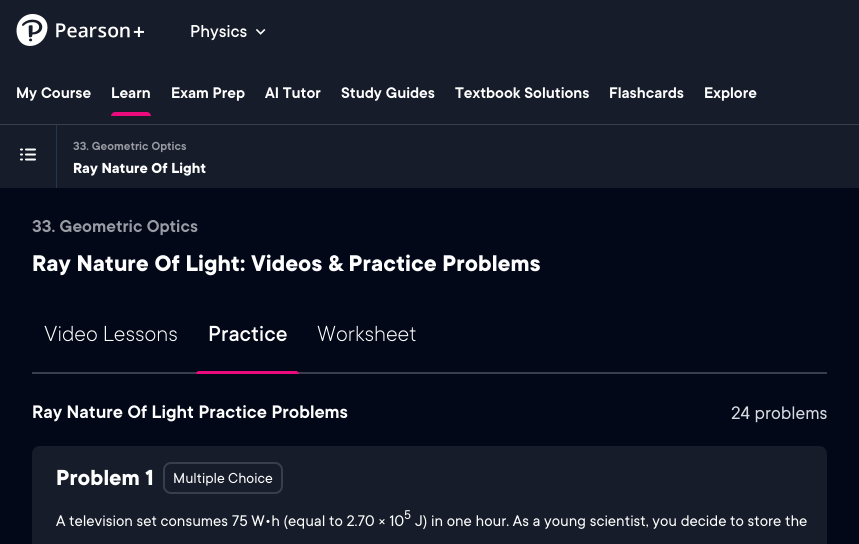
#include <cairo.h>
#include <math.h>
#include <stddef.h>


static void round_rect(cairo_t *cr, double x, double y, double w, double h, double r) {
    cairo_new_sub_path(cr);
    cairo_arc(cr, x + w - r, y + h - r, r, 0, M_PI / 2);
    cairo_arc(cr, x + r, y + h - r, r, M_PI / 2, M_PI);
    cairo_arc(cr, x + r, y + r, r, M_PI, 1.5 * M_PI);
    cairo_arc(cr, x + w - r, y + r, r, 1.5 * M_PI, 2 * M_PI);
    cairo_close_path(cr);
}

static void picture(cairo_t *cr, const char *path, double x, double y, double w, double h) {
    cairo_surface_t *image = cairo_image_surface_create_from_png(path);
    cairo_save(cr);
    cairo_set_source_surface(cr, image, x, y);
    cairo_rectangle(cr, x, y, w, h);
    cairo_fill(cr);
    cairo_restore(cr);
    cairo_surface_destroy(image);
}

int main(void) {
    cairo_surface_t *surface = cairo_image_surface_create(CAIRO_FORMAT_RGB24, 859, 544);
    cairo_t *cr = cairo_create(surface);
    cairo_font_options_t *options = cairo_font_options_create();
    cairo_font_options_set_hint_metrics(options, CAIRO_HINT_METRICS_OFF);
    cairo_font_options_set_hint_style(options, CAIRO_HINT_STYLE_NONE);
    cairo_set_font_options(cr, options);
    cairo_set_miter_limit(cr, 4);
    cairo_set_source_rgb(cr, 0.008, 0.035, 0.09);
    cairo_paint(cr);
    cairo_set_source_rgb(cr, 0.086, 0.11, 0.161);
    cairo_rectangle(cr, 0, 0, 859, 124);
    cairo_fill(cr);
    picture(cr, "img1.png", 16, 14, 32, 32);
    picture(cr, "img2.png", 56, 23, 88, 15);
    cairo_select_font_face(cr, "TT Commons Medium", CAIRO_FONT_SLANT_NORMAL, CAIRO_FONT_WEIGHT_NORMAL);
    cairo_set_font_size(cr, 19);
    cairo_set_source_rgb(cr, 0.996, 0.996, 0.996);
    cairo_move_to(cr, 190, 37);
    cairo_show_text(cr, "Physics");
    picture(cr, "img3.png", 256, 29, 10, 6);
    cairo_set_source_rgb(cr, 0.224, 0.247, 0.29);
    cairo_rectangle(cr, 0, 124, 859, 1);
    cairo_fill(cr);
    cairo_select_font_face(cr, "TT Commons SemiBold", CAIRO_FONT_SLANT_NORMAL, CAIRO_FONT_WEIGHT_NORMAL);
    cairo_set_font_size(cr, 17);
    cairo_set_source_rgb(cr, 0.996, 0.996, 0.996);
    cairo_move_to(cr, 16, 98);
    cairo_show_text(cr, "My Course");
    cairo_move_to(cr, 111, 98);
    cairo_show_text(cr, "Learn");
    cairo_set_source_rgb(cr, 0.918, 0.043, 0.494);
    cairo_new_path(cr);
    cairo_move_to(cr, 115, 112);
    cairo_line_to(cr, 147, 112);
    cairo_curve_to(cr, 149, 112, 151, 114, 151, 116);
    cairo_line_to(cr, 111, 116);
    cairo_curve_to(cr, 111, 114, 113, 112, 115, 112);
    cairo_close_path(cr);
    cairo_fill(cr);
    cairo_set_source_rgb(cr, 0.996, 0.996, 0.996);
    cairo_move_to(cr, 171, 98);
    cairo_show_text(cr, "Exam Prep");
    cairo_move_to(cr, 265, 98);
    cairo_show_text(cr, "AI Tutor");
    cairo_move_to(cr, 341, 98);
    cairo_show_text(cr, "Study Guides");
    cairo_move_to(cr, 455, 98);
    cairo_show_text(cr, "Textbook Solutions");
    cairo_move_to(cr, 609, 98);
    cairo_show_text(cr, "Flashcards");
    cairo_move_to(cr, 704, 98);
    cairo_show_text(cr, "Explore");
    cairo_set_source_rgb(cr, 0.086, 0.11, 0.161);
    cairo_rectangle(cr, 0, 125, 859, 63);
    cairo_fill(cr);
    picture(cr, "img4.png", 20, 148, 16, 13);
    cairo_set_source_rgb(cr, 0.157, 0.208, 0.306);
    cairo_rectangle(cr, 56, 125, 1, 63);
    cairo_fill(cr);
    cairo_set_font_size(cr, 13);
    cairo_set_source_rgb(cr, 0.596, 0.608, 0.639);
    cairo_move_to(cr, 73, 150);
    cairo_show_text(cr, "33. Geometric Optics");
    cairo_select_font_face(cr, "TT Commons", CAIRO_FONT_SLANT_NORMAL, CAIRO_FONT_WEIGHT_BOLD);
    cairo_set_font_size(cr, 16);
    cairo_set_source_rgb(cr, 0.996, 0.996, 0.996);
    cairo_move_to(cr, 73, 173);
    cairo_show_text(cr, "Ray Nature Of Light");
    cairo_select_font_face(cr, "TT Commons SemiBold", CAIRO_FONT_SLANT_NORMAL, CAIRO_FONT_WEIGHT_NORMAL);
    cairo_set_font_size(cr, 19);
    cairo_set_source_rgb(cr, 0.596, 0.608, 0.639);
    cairo_move_to(cr, 32, 232);
    cairo_show_text(cr, "33. Geometric Optics");
    cairo_select_font_face(cr, "TT Commons", CAIRO_FONT_SLANT_NORMAL, CAIRO_FONT_WEIGHT_BOLD);
    cairo_set_font_size(cr, 25);
    cairo_set_source_rgb(cr, 0.996, 0.996, 0.996);
    cairo_move_to(cr, 32, 271);
    cairo_show_text(cr, "Ray Nature Of Light: Videos & Practice Problems");
    cairo_set_source_rgb(cr, 0.224, 0.247, 0.29);
    cairo_rectangle(cr, 32, 372, 795, 2);
    cairo_fill(cr);
    cairo_select_font_face(cr, "TT Commons Light", CAIRO_FONT_SLANT_NORMAL, CAIRO_FONT_WEIGHT_NORMAL);
    cairo_set_font_size(cr, 24);
    cairo_set_source_rgb(cr, 0.996, 0.996, 0.996);
    cairo_move_to(cr, 44, 341);
    cairo_show_text(cr, "Video Lessons");
    cairo_select_font_face(cr, "TT Commons Medium", CAIRO_FONT_SLANT_NORMAL, CAIRO_FONT_WEIGHT_NORMAL);
    cairo_move_to(cr, 208, 341);
    cairo_show_text(cr, "Practice");
    cairo_select_font_face(cr, "TT Commons Light", CAIRO_FONT_SLANT_NORMAL, CAIRO_FONT_WEIGHT_NORMAL);
    cairo_move_to(cr, 317, 341);
    cairo_show_text(cr, "Worksheet");
    cairo_set_source_rgb(cr, 0.918, 0.043, 0.494);
    cairo_new_path(cr);
    cairo_move_to(cr, 199, 371);
    cairo_line_to(cr, 296, 371);
    cairo_curve_to(cr, 297.5, 371, 299, 372.5, 299, 374);
    cairo_line_to(cr, 196, 374);
    cairo_curve_to(cr, 196, 372.5, 197.5, 371, 199, 371);
    cairo_close_path(cr);
    cairo_fill(cr);
    cairo_select_font_face(cr, "TT Commons SemiBold", CAIRO_FONT_SLANT_NORMAL, CAIRO_FONT_WEIGHT_NORMAL);
    cairo_set_font_size(cr, 20);
    cairo_set_source_rgb(cr, 0.996, 0.996, 0.996);
    cairo_move_to(cr, 32, 418);
    cairo_show_text(cr, "Ray Nature Of Light Practice Problems");
    cairo_select_font_face(cr, "TT Commons", CAIRO_FONT_SLANT_NORMAL, CAIRO_FONT_WEIGHT_NORMAL);
    cairo_set_source_rgb(cr, 0.843, 0.855, 0.882);
    cairo_move_to(cr, 731, 419);
    cairo_show_text(cr, "24 problems");
    cairo_set_source_rgb(cr, 0.086, 0.11, 0.161);
    cairo_new_path(cr);
    cairo_move_to(cr, 40, 446);
    cairo_line_to(cr, 819, 446);
    cairo_curve_to(cr, 823.5, 446, 827, 449.5, 827, 454);
    cairo_line_to(cr, 827, 544);
    cairo_line_to(cr, 32, 544);
    cairo_line_to(cr, 32, 454);
    cairo_curve_to(cr, 32, 449.5, 35.5, 446, 40, 446);
    cairo_close_path(cr);
    cairo_fill(cr);
    cairo_select_font_face(cr, "TT Commons", CAIRO_FONT_SLANT_NORMAL, CAIRO_FONT_WEIGHT_BOLD);
    cairo_set_font_size(cr, 24);
    cairo_set_source_rgb(cr, 0.996, 0.996, 0.996);
    cairo_move_to(cr, 56, 485);
    cairo_show_text(cr, "Problem 1");
    round_rect(cr, 164, 463, 118, 30, 7);
    cairo_set_source_rgb(cr, 0.224, 0.247, 0.29);
    cairo_stroke(cr);
    cairo_select_font_face(cr, "TT Commons", CAIRO_FONT_SLANT_NORMAL, CAIRO_FONT_WEIGHT_NORMAL);
    cairo_set_font_size(cr, 16);
    cairo_set_source_rgb(cr, 0.996, 0.996, 0.996);
    cairo_move_to(cr, 173, 483);
    cairo_show_text(cr, "Multiple Choice");
    cairo_set_font_size(cr, 17);
    cairo_move_to(cr, 56, 526);
    cairo_show_text(cr, "A television set consumes 75 W•h (equal to 2.70 × 10");
    cairo_set_font_size(cr, 14);
    cairo_move_to(cr, 404, 519);
    cairo_show_text(cr, "5");
    cairo_set_font_size(cr, 17);
    cairo_move_to(cr, 415, 526);
    cairo_show_text(cr, "J) in one hour. As a young scientist, you decide to store the");
    cairo_surface_write_to_png(surface, "page.png");
    cairo_font_options_destroy(options);
    cairo_destroy(cr);
    cairo_surface_destroy(surface);
    return 0;
}
